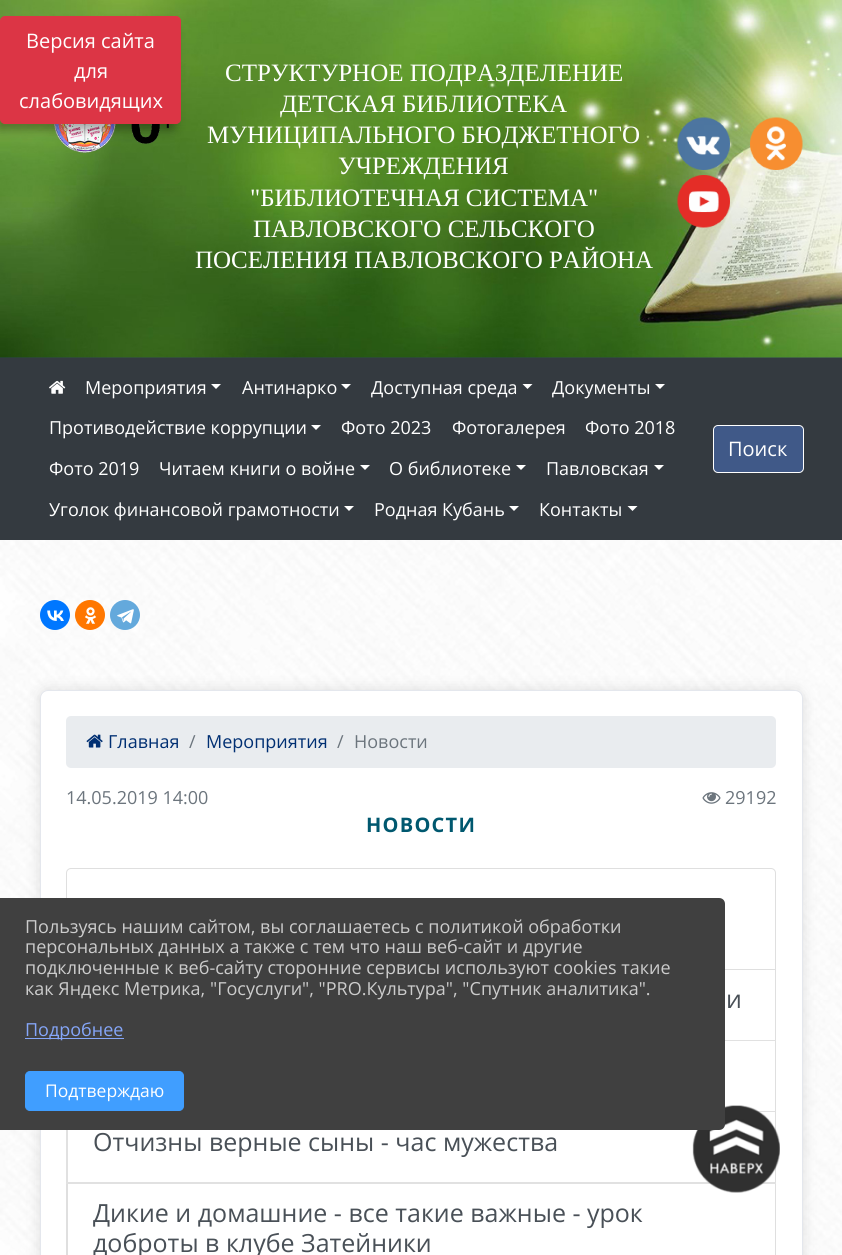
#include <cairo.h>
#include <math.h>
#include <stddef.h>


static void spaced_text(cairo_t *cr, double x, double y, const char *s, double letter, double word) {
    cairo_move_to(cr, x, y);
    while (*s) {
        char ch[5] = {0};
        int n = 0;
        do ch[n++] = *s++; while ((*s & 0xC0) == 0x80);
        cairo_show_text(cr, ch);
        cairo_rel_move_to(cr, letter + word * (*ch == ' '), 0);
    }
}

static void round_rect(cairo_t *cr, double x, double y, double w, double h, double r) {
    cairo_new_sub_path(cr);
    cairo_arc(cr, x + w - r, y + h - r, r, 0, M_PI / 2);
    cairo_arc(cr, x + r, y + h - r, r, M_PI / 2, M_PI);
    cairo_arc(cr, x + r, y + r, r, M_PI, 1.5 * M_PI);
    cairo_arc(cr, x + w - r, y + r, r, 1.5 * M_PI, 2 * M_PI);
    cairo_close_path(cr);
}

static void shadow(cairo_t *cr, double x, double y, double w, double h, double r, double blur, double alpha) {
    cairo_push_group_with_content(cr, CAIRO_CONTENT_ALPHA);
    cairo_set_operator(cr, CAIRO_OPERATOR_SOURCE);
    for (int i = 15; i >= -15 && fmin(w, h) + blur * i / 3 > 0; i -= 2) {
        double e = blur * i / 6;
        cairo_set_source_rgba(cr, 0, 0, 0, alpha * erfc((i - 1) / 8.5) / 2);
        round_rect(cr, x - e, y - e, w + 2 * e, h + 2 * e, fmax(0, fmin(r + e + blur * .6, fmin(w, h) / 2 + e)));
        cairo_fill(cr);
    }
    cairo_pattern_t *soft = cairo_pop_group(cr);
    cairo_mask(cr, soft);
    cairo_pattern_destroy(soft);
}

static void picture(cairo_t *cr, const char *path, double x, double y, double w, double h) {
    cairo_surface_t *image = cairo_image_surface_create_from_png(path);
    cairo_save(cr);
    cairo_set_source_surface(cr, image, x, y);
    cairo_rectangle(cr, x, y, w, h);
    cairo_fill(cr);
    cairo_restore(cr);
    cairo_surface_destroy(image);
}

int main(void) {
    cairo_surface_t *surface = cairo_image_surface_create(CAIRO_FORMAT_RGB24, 842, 1255);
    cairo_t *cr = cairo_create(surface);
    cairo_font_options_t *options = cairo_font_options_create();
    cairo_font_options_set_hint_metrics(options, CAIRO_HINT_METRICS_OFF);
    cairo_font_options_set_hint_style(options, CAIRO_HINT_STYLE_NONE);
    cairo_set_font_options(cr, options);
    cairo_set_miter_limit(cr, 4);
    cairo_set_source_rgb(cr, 1, 1, 1);
    cairo_paint(cr);
    picture(cr, "img1.png", 0, 540, 842, 715);
    cairo_set_source_rgb(cr, 0.188, 0.255, 0.337);
    cairo_rectangle(cr, 0, 357, 842, 1);
    cairo_fill(cr);
    picture(cr, "img2.png", 0, 0, 842, 358);
    picture(cr, "img3.png", 54, 124, 115, 29);
    cairo_set_source_rgb(cr, 0, 0, 0);
    shadow(cr, -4, 25, 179, 105, 4, 5, 0.35);
    cairo_set_source_rgb(cr, 0.863, 0.208, 0.271);
    round_rect(cr, 0.5, 16.5, 180, 107, 4.5);
    cairo_fill_preserve(cr);
    cairo_set_line_width(cr, 1);
    cairo_stroke(cr);
    cairo_select_font_face(cr, "Open Sans", CAIRO_FONT_SLANT_NORMAL, CAIRO_FONT_WEIGHT_NORMAL);
    cairo_set_font_size(cr, 20);
    cairo_set_source_rgb(cr, 1, 1, 1);
    cairo_move_to(cr, 26, 48);
    cairo_show_text(cr, "Версия сайта");
    cairo_move_to(cr, 74, 78);
    cairo_show_text(cr, "для");
    cairo_move_to(cr, 19, 108);
    cairo_show_text(cr, "слабовидящих");
    cairo_select_font_face(cr, "Liberation Serif", CAIRO_FONT_SLANT_NORMAL, CAIRO_FONT_WEIGHT_NORMAL);
    cairo_set_font_size(cr, 25);
    cairo_move_to(cr, 225, 81);
    cairo_show_text(cr, "СТРУКТУРНОЕ ПОДРАЗДЕЛЕНИЕ");
    cairo_move_to(cr, 280, 112);
    cairo_show_text(cr, "ДЕТСКАЯ БИБЛИОТЕКА");
    cairo_move_to(cr, 207, 143);
    cairo_show_text(cr, "МУНИЦИПАЛЬНОГО БЮДЖЕТНОГО");
    cairo_move_to(cr, 338, 174);
    cairo_show_text(cr, "УЧРЕЖДЕНИЯ");
    cairo_move_to(cr, 250, 206);
    cairo_show_text(cr, "\"БИБЛИОТЕЧНАЯ СИСТЕМА\"");
    cairo_move_to(cr, 253, 237);
    cairo_show_text(cr, "ПАВЛОВСКОГО СЕЛЬСКОГО");
    cairo_move_to(cr, 195, 268);
    cairo_show_text(cr, "ПОСЕЛЕНИЯ ПАВЛОВСКОГО РАЙОНА");
    picture(cr, "img4.png", 677, 117, 53, 53);
    picture(cr, "img5.png", 750, 117, 53, 53);
    picture(cr, "img6.png", 677, 175, 53, 53);
    cairo_set_source_rgb(cr, 0.204, 0.227, 0.251);
    cairo_rectangle(cr, 0, 358, 842, 182);
    cairo_fill(cr);
    picture(cr, "img7.png", 49, 380, 17, 14);
    cairo_select_font_face(cr, "Open Sans", CAIRO_FONT_SLANT_NORMAL, CAIRO_FONT_WEIGHT_NORMAL);
    cairo_set_font_size(cr, 18);
    cairo_set_source_rgb(cr, 1, 1, 1);
    cairo_move_to(cr, 85, 394);
    cairo_show_text(cr, "Мероприятия");
    cairo_new_path(cr);
    cairo_move_to(cr, 211, 384);
    cairo_line_to(cr, 221, 384);
    cairo_line_to(cr, 216, 389);
    cairo_close_path(cr);
    cairo_fill(cr);
    cairo_move_to(cr, 242, 394);
    cairo_show_text(cr, "Антинарко");
    cairo_new_path(cr);
    cairo_move_to(cr, 341, 384);
    cairo_line_to(cr, 351, 384);
    cairo_line_to(cr, 346, 389);
    cairo_close_path(cr);
    cairo_fill(cr);
    cairo_move_to(cr, 371, 394);
    cairo_show_text(cr, "Доступная среда");
    cairo_new_path(cr);
    cairo_move_to(cr, 522.5, 384);
    cairo_line_to(cr, 532.5, 384);
    cairo_line_to(cr, 527.5, 389);
    cairo_close_path(cr);
    cairo_fill(cr);
    cairo_move_to(cr, 552, 394);
    cairo_show_text(cr, "Документы");
    cairo_new_path(cr);
    cairo_move_to(cr, 655, 384);
    cairo_line_to(cr, 665, 384);
    cairo_line_to(cr, 660, 389);
    cairo_close_path(cr);
    cairo_fill(cr);
    cairo_move_to(cr, 49, 434);
    cairo_show_text(cr, "Противодействие коррупции");
    cairo_new_path(cr);
    cairo_move_to(cr, 311, 425);
    cairo_line_to(cr, 321, 425);
    cairo_line_to(cr, 316, 430);
    cairo_close_path(cr);
    cairo_fill(cr);
    cairo_move_to(cr, 341, 434);
    cairo_show_text(cr, "Фото 2023");
    cairo_move_to(cr, 452, 434);
    cairo_show_text(cr, "Фотогалерея");
    cairo_move_to(cr, 585, 434);
    cairo_show_text(cr, "Фото 2018");
    cairo_move_to(cr, 49, 475);
    cairo_show_text(cr, "Фото 2019");
    cairo_move_to(cr, 159, 475);
    cairo_show_text(cr, "Читаем книги о войне");
    cairo_new_path(cr);
    cairo_move_to(cr, 360, 465);
    cairo_line_to(cr, 370, 465);
    cairo_line_to(cr, 365, 470);
    cairo_close_path(cr);
    cairo_fill(cr);
    cairo_move_to(cr, 389, 475);
    cairo_show_text(cr, "О библиотеке");
    cairo_new_path(cr);
    cairo_move_to(cr, 516, 465);
    cairo_line_to(cr, 526, 465);
    cairo_line_to(cr, 521, 470);
    cairo_close_path(cr);
    cairo_fill(cr);
    cairo_move_to(cr, 546, 475);
    cairo_show_text(cr, "Павловская");
    cairo_new_path(cr);
    cairo_move_to(cr, 654, 465);
    cairo_line_to(cr, 664, 465);
    cairo_line_to(cr, 659, 470);
    cairo_close_path(cr);
    cairo_fill(cr);
    cairo_move_to(cr, 49, 516);
    cairo_show_text(cr, "Уголок финансовой грамотности");
    cairo_new_path(cr);
    cairo_move_to(cr, 344, 506);
    cairo_line_to(cr, 354, 506);
    cairo_line_to(cr, 349, 511);
    cairo_close_path(cr);
    cairo_fill(cr);
    cairo_move_to(cr, 374, 516);
    cairo_show_text(cr, "Родная Кубань");
    cairo_new_path(cr);
    cairo_move_to(cr, 509, 506);
    cairo_line_to(cr, 519, 506);
    cairo_line_to(cr, 514, 511);
    cairo_close_path(cr);
    cairo_fill(cr);
    cairo_move_to(cr, 539, 516);
    cairo_show_text(cr, "Контакты");
    cairo_new_path(cr);
    cairo_move_to(cr, 627.5, 506);
    cairo_line_to(cr, 637.5, 506);
    cairo_line_to(cr, 632.5, 511);
    cairo_close_path(cr);
    cairo_fill(cr);
    cairo_set_source_rgb(cr, 0.251, 0.349, 0.533);
    round_rect(cr, 713.5, 425.5, 90, 47, 4.5);
    cairo_fill_preserve(cr);
    cairo_set_source_rgb(cr, 1, 1, 1);
    cairo_stroke(cr);
    cairo_set_font_size(cr, 20);
    cairo_move_to(cr, 728, 456);
    cairo_show_text(cr, "Поиск");
    cairo_set_source_rgb(cr, 0, 0.467, 1);
    cairo_new_path(cr);
    cairo_arc(cr, 55, 615, 15, 0, 2 * M_PI);
    cairo_fill(cr);
    picture(cr, "img8.png", 47, 610, 17, 11);
    cairo_set_source_rgb(cr, 1, 0.467, 0);
    cairo_arc(cr, 90, 615, 15, 0, 2 * M_PI);
    cairo_fill(cr);
    picture(cr, "img9.png", 85, 607, 12, 17);
    cairo_set_source_rgb(cr, 0.392, 0.663, 0.863);
    cairo_arc(cr, 125, 615, 15, 0, 2 * M_PI);
    cairo_fill(cr);
    picture(cr, "img10.png", 117, 609, 17, 15);
    cairo_set_source_rgb(cr, 0, 0, 0);
    shadow(cr, 40, 690, 763, 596, 8, 7.5, 0.12);
    cairo_set_source_rgb(cr, 1, 1, 1);
    round_rect(cr, 40.5, 690.5, 762, 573, 7.5);
    cairo_fill_preserve(cr);
    cairo_set_source_rgb(cr, 0.894, 0.906, 0.929);
    cairo_stroke(cr);
    cairo_set_source_rgb(cr, 0.914, 0.925, 0.937);
    round_rect(cr, 66, 716, 710, 52, 5);
    cairo_fill(cr);
    picture(cr, "img11.png", 86, 734, 17, 14);
    cairo_set_font_size(cr, 18);
    cairo_set_source_rgb(cr, 0, 0.184, 0.447);
    cairo_move_to(cr, 108, 748);
    cairo_show_text(cr, "Главная");
    cairo_set_source_rgb(cr, 0.424, 0.459, 0.49);
    cairo_move_to(cr, 189, 748);
    cairo_show_text(cr, "/");
    cairo_set_source_rgb(cr, 0, 0.184, 0.447);
    cairo_move_to(cr, 206, 748);
    cairo_show_text(cr, "Мероприятия");
    cairo_set_source_rgb(cr, 0.424, 0.459, 0.49);
    cairo_move_to(cr, 337, 748);
    cairo_show_text(cr, "/");
    cairo_move_to(cr, 354, 748);
    cairo_show_text(cr, "Новости");
    cairo_move_to(cr, 66, 804);
    cairo_show_text(cr, "14.05.2019 14:00");
    picture(cr, "img12.png", 702, 792, 19, 12);
    cairo_move_to(cr, 725, 804);
    cairo_show_text(cr, "29192");
    cairo_select_font_face(cr, "Open Sans", CAIRO_FONT_SLANT_NORMAL, CAIRO_FONT_WEIGHT_BOLD);
    cairo_set_font_size(cr, 20);
    cairo_set_source_rgb(cr, 0, 0.345, 0.435);
    spaced_text(cr, 366, 832, "НОВОСТИ", 1.25, 0);
    cairo_new_path(cr);
    cairo_move_to(cr, 71, 868.5);
    cairo_line_to(cr, 771, 868.5);
    cairo_curve_to(cr, 773.5, 868.5, 775.5, 870.5, 775.5, 873);
    cairo_line_to(cr, 775.5, 969.5);
    cairo_line_to(cr, 66.5, 969.5);
    cairo_line_to(cr, 66.5, 873);
    cairo_curve_to(cr, 66.5, 870.5, 68.5, 868.5, 71, 868.5);
    cairo_close_path(cr);
    cairo_set_source_rgb(cr, 0.875, 0.875, 0.875);
    cairo_stroke(cr);
    cairo_new_path(cr);
    cairo_move_to(cr, 776, 970);
    cairo_line_to(cr, 776, 1041);
    cairo_line_to(cr, 775, 1040);
    cairo_line_to(cr, 775, 970);
    cairo_close_path(cr);
    cairo_fill(cr);
    cairo_set_source_rgba(cr, 0, 0, 0, 0.12);
    cairo_new_path(cr);
    cairo_move_to(cr, 776, 1041);
    cairo_line_to(cr, 66, 1041);
    cairo_line_to(cr, 68, 1040);
    cairo_line_to(cr, 775, 1040);
    cairo_close_path(cr);
    cairo_fill(cr);
    cairo_select_font_face(cr, "Open Sans", CAIRO_FONT_SLANT_NORMAL, CAIRO_FONT_WEIGHT_NORMAL);
    cairo_set_font_size(cr, 25);
    cairo_set_source_rgb(cr, 0.286, 0.314, 0.341);
    cairo_move_to(cr, 726, 1008);
    cairo_show_text(cr, "и");
    cairo_set_source_rgb(cr, 0.875, 0.875, 0.875);
    cairo_new_path(cr);
    cairo_move_to(cr, 776, 1041);
    cairo_line_to(cr, 776, 1112);
    cairo_line_to(cr, 775, 1111);
    cairo_line_to(cr, 775, 1041);
    cairo_close_path(cr);
    cairo_fill(cr);
    cairo_set_source_rgba(cr, 0, 0, 0, 0.12);
    cairo_new_path(cr);
    cairo_move_to(cr, 776, 1112);
    cairo_line_to(cr, 66, 1112);
    cairo_line_to(cr, 68, 1111);
    cairo_line_to(cr, 775, 1111);
    cairo_close_path(cr);
    cairo_fill(cr);
    cairo_set_source_rgb(cr, 0.875, 0.875, 0.875);
    cairo_new_path(cr);
    cairo_move_to(cr, 776, 1112);
    cairo_line_to(cr, 776, 1184);
    cairo_line_to(cr, 775, 1182);
    cairo_line_to(cr, 775, 1112);
    cairo_close_path(cr);
    cairo_fill(cr);
    cairo_set_source_rgba(cr, 0, 0, 0, 0.12);
    cairo_new_path(cr);
    cairo_move_to(cr, 776, 1184);
    cairo_line_to(cr, 66, 1184);
    cairo_line_to(cr, 68, 1182);
    cairo_line_to(cr, 775, 1182);
    cairo_close_path(cr);
    cairo_fill(cr);
    cairo_new_path(cr);
    cairo_move_to(cr, 66, 1184);
    cairo_line_to(cr, 66, 1112);
    cairo_line_to(cr, 68, 1112);
    cairo_line_to(cr, 68, 1182);
    cairo_close_path(cr);
    cairo_fill(cr);
    cairo_set_source_rgb(cr, 0.286, 0.314, 0.341);
    cairo_move_to(cr, 93, 1151);
    cairo_show_text(cr, "Отчизны верные сыны - час мужества");
    cairo_set_source_rgb(cr, 0.875, 0.875, 0.875);
    cairo_new_path(cr);
    cairo_move_to(cr, 776, 1184);
    cairo_line_to(cr, 776, 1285);
    cairo_line_to(cr, 775, 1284);
    cairo_line_to(cr, 775, 1184);
    cairo_close_path(cr);
    cairo_fill(cr);
    cairo_new_path(cr);
    cairo_move_to(cr, 66, 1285);
    cairo_line_to(cr, 66, 1184);
    cairo_line_to(cr, 68, 1184);
    cairo_line_to(cr, 68, 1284);
    cairo_close_path(cr);
    cairo_fill(cr);
    cairo_set_source_rgb(cr, 0.286, 0.314, 0.341);
    cairo_move_to(cr, 93, 1222);
    cairo_show_text(cr, "Дикие и домашние - все такие важные - урок");
    cairo_move_to(cr, 93, 1252);
    cairo_show_text(cr, "доброты в клубе Затейники");
    picture(cr, "img13.png", 692, 1105, 88, 88);
    cairo_set_source_rgb(cr, 0.251, 0.251, 0.251);
    cairo_new_path(cr);
    cairo_move_to(cr, 0, 898);
    cairo_line_to(cr, 719, 898);
    cairo_curve_to(cr, 722.5, 898, 725, 900.5, 725, 904);
    cairo_line_to(cr, 725, 1124);
    cairo_curve_to(cr, 725, 1127.5, 722.5, 1130, 719, 1130);
    cairo_line_to(cr, 0, 1130);
    cairo_close_path(cr);
    cairo_fill(cr);
    cairo_set_font_size(cr, 18);
    cairo_set_source_rgb(cr, 0.8, 0.8, 0.8);
    cairo_move_to(cr, 25, 933);
    cairo_show_text(cr, "Пользуясь нашим сайтом, вы соглашаетесь с политикой обработки");
    cairo_move_to(cr, 25, 953);
    cairo_show_text(cr, "персональных данных а также с тем что наш веб-сайт и другие");
    cairo_move_to(cr, 25, 974);
    cairo_show_text(cr, "подключенные к веб-сайту сторонние сервисы используют cookies такие");
    cairo_move_to(cr, 25, 995);
    cairo_show_text(cr, "как Яндекс Метрика, \"Госуслуги\", \"PRO.Культура\", \"Спутник аналитика\".");
    cairo_set_source_rgb(cr, 0.522, 0.651, 0.976);
    cairo_rectangle(cr, 25, 1038, 99, 1);
    cairo_fill(cr);
    cairo_move_to(cr, 25, 1036);
    cairo_show_text(cr, "Подробнее");
    cairo_set_source_rgb(cr, 0.251, 0.62, 1);
    round_rect(cr, 25.5, 1071.5, 158, 39, 4.5);
    cairo_fill_preserve(cr);
    cairo_stroke(cr);
    cairo_set_font_size(cr, 17.5);
    cairo_set_source_rgb(cr, 1, 1, 1);
    cairo_move_to(cr, 45, 1097);
    cairo_show_text(cr, "Подтверждаю");
    cairo_surface_write_to_png(surface, "page.png");
    cairo_font_options_destroy(options);
    cairo_destroy(cr);
    cairo_surface_destroy(surface);
    return 0;
}
